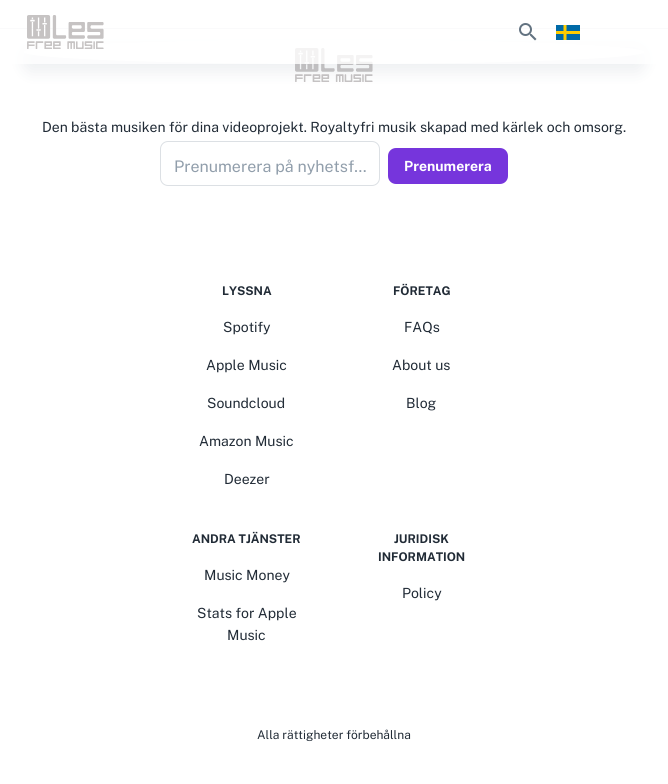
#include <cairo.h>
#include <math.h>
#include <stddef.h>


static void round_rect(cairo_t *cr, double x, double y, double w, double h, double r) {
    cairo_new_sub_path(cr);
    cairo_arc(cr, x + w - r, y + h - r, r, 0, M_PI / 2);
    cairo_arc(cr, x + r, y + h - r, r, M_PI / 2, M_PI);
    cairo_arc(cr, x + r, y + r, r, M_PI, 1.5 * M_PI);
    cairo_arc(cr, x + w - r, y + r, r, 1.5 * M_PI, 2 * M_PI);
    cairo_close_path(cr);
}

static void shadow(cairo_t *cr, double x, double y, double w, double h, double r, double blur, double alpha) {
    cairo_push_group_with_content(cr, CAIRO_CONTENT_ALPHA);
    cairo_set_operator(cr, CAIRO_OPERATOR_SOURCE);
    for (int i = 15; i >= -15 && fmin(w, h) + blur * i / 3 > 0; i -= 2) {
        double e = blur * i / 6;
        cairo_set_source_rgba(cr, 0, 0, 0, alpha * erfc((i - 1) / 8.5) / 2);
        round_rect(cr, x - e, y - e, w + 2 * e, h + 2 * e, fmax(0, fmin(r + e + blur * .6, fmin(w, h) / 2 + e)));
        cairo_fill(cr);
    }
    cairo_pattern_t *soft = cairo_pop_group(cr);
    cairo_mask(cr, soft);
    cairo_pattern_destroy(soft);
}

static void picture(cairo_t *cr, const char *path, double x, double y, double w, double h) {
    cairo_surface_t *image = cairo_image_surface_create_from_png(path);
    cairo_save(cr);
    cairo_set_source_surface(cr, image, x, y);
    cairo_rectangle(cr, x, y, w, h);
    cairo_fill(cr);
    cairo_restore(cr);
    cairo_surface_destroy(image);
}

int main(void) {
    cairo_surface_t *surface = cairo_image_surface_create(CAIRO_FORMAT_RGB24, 668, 784);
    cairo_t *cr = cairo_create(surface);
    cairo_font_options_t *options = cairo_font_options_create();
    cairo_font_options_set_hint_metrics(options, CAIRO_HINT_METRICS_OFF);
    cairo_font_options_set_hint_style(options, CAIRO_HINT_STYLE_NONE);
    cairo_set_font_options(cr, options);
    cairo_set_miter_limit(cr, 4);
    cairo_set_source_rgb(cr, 1, 1, 1);
    cairo_paint(cr);
    cairo_set_source_rgb(cr, 0.898, 0.91, 0.922);
    cairo_rectangle(cr, 0, 28, 668, 1);
    cairo_fill(cr);
    picture(cr, "img4.png", 295, 48, 78, 34);
    cairo_save(cr);
    cairo_set_fill_rule(cr, CAIRO_FILL_RULE_EVEN_ODD);
    cairo_new_path(cr);
    cairo_move_to(cr, 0, 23);
    cairo_line_to(cr, 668, 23);
    cairo_line_to(cr, 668, 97);
    cairo_line_to(cr, 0, 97);
    cairo_close_path(cr);
    cairo_move_to(cr, 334, 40);
    cairo_curve_to(cr, 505, 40, 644, 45.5, 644, 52);
    cairo_curve_to(cr, 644, 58.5, 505, 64, 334, 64);
    cairo_curve_to(cr, 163, 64, 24, 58.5, 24, 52);
    cairo_curve_to(cr, 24, 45.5, 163, 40, 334, 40);
    cairo_close_path(cr);
    cairo_clip(cr);
    cairo_set_source_rgb(cr, 0.569, 0.62, 0.671);
    shadow(cr, 24, 48, 620, 24, 12, 8, 0.16);
    cairo_restore(cr);
    cairo_set_source_rgba(cr, 1, 1, 1, 0.8);
    cairo_rectangle(cr, 0, 28, 668, 36);
    cairo_fill(cr);
    picture(cr, "img1.png", 27, 15, 77, 34);
    picture(cr, "img2.png", 519, 23, 18, 18);
    picture(cr, "img3.png", 556, 25, 24, 15);
    cairo_select_font_face(cr, "Public Sans", CAIRO_FONT_SLANT_NORMAL, CAIRO_FONT_WEIGHT_NORMAL);
    cairo_set_font_size(cr, 14);
    cairo_set_source_rgb(cr, 0.129, 0.169, 0.212);
    cairo_move_to(cr, 42, 132);
    cairo_show_text(cr, "Den bästa musiken för dina videoprojekt. Royaltyfri musik skapad med kärlek och omsorg.");
    round_rect(cr, 160.5, 141.5, 219, 44, 7.5);
    cairo_set_source_rgb(cr, 0.863, 0.878, 0.894);
    cairo_set_line_width(cr, 1);
    cairo_stroke(cr);
    cairo_set_font_size(cr, 16);
    cairo_set_source_rgb(cr, 0.569, 0.62, 0.671);
    cairo_move_to(cr, 174, 172);
    cairo_show_text(cr, "Prenumerera på nyhetsf…");
    cairo_set_source_rgb(cr, 0.463, 0.208, 0.863);
    round_rect(cr, 388, 148, 120, 36, 8);
    cairo_fill(cr);
    cairo_select_font_face(cr, "Public Sans", CAIRO_FONT_SLANT_NORMAL, CAIRO_FONT_WEIGHT_BOLD);
    cairo_set_font_size(cr, 14);
    cairo_set_source_rgb(cr, 1, 1, 1);
    cairo_move_to(cr, 404, 171);
    cairo_show_text(cr, "Prenumerera");
    cairo_set_font_size(cr, 12);
    cairo_set_source_rgb(cr, 0.129, 0.169, 0.212);
    cairo_move_to(cr, 222, 295);
    cairo_show_text(cr, "LYSSNA");
    cairo_select_font_face(cr, "Public Sans", CAIRO_FONT_SLANT_NORMAL, CAIRO_FONT_WEIGHT_NORMAL);
    cairo_set_font_size(cr, 14);
    cairo_move_to(cr, 223, 332);
    cairo_show_text(cr, "Spotify");
    cairo_move_to(cr, 206, 370);
    cairo_show_text(cr, "Apple Music");
    cairo_move_to(cr, 207, 408);
    cairo_show_text(cr, "Soundcloud");
    cairo_move_to(cr, 199, 446);
    cairo_show_text(cr, "Amazon Music");
    cairo_move_to(cr, 224, 484);
    cairo_show_text(cr, "Deezer");
    cairo_select_font_face(cr, "Public Sans", CAIRO_FONT_SLANT_NORMAL, CAIRO_FONT_WEIGHT_BOLD);
    cairo_set_font_size(cr, 12);
    cairo_move_to(cr, 393, 295);
    cairo_show_text(cr, "FÖRETAG");
    cairo_select_font_face(cr, "Public Sans", CAIRO_FONT_SLANT_NORMAL, CAIRO_FONT_WEIGHT_NORMAL);
    cairo_set_font_size(cr, 14);
    cairo_move_to(cr, 404, 332);
    cairo_show_text(cr, "FAQs");
    cairo_move_to(cr, 392, 370);
    cairo_show_text(cr, "About us");
    cairo_move_to(cr, 406, 408);
    cairo_show_text(cr, "Blog");
    cairo_select_font_face(cr, "Public Sans", CAIRO_FONT_SLANT_NORMAL, CAIRO_FONT_WEIGHT_BOLD);
    cairo_set_font_size(cr, 12);
    cairo_move_to(cr, 192, 543);
    cairo_show_text(cr, "ANDRA TJÄNSTER");
    cairo_select_font_face(cr, "Public Sans", CAIRO_FONT_SLANT_NORMAL, CAIRO_FONT_WEIGHT_NORMAL);
    cairo_set_font_size(cr, 14);
    cairo_move_to(cr, 204, 580);
    cairo_show_text(cr, "Music Money");
    cairo_move_to(cr, 197, 618);
    cairo_show_text(cr, "Stats for Apple");
    cairo_move_to(cr, 227, 640);
    cairo_show_text(cr, "Music");
    cairo_select_font_face(cr, "Public Sans", CAIRO_FONT_SLANT_NORMAL, CAIRO_FONT_WEIGHT_BOLD);
    cairo_set_font_size(cr, 12);
    cairo_move_to(cr, 394, 543);
    cairo_show_text(cr, "JURIDISK");
    cairo_move_to(cr, 378, 561);
    cairo_show_text(cr, "INFORMATION");
    cairo_select_font_face(cr, "Public Sans", CAIRO_FONT_SLANT_NORMAL, CAIRO_FONT_WEIGHT_NORMAL);
    cairo_set_font_size(cr, 14);
    cairo_move_to(cr, 402, 598);
    cairo_show_text(cr, "Policy");
    cairo_set_font_size(cr, 12);
    cairo_move_to(cr, 257, 739);
    cairo_show_text(cr, "Alla rättigheter förbehållna");
    cairo_surface_write_to_png(surface, "page.png");
    cairo_font_options_destroy(options);
    cairo_destroy(cr);
    cairo_surface_destroy(surface);
    return 0;
}
